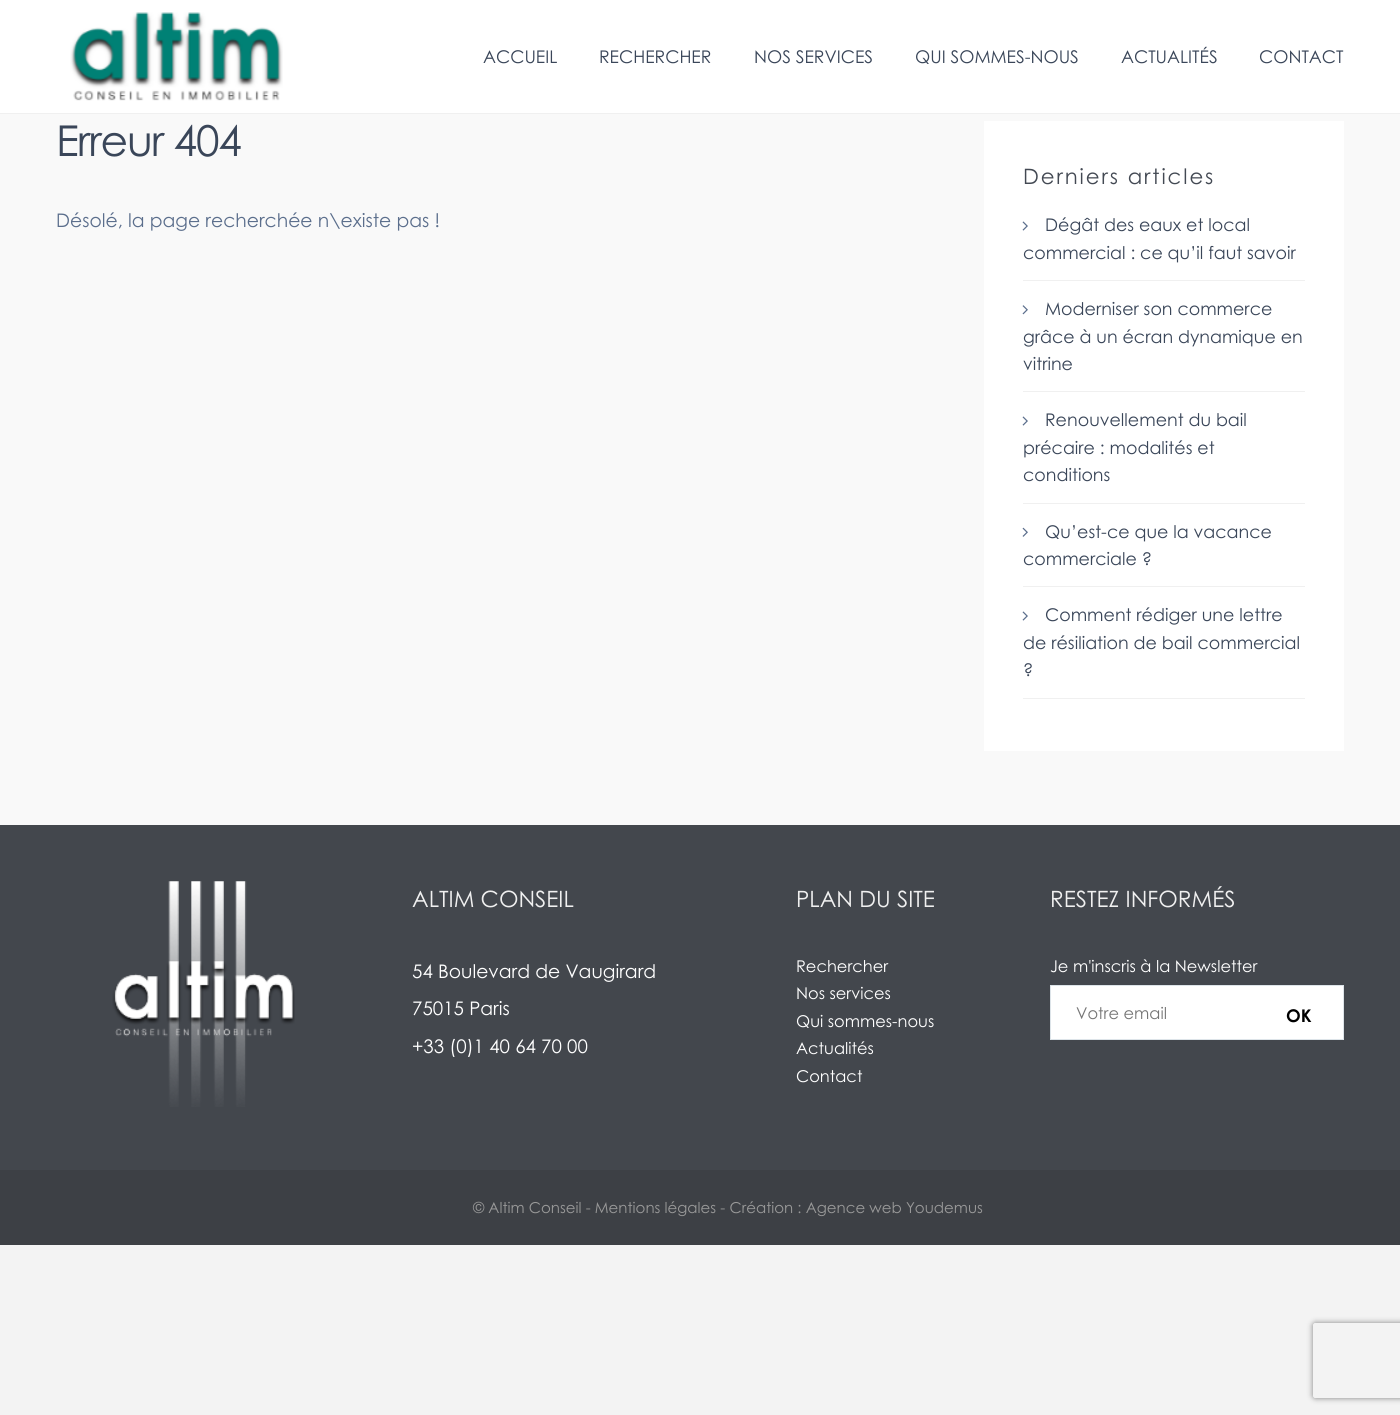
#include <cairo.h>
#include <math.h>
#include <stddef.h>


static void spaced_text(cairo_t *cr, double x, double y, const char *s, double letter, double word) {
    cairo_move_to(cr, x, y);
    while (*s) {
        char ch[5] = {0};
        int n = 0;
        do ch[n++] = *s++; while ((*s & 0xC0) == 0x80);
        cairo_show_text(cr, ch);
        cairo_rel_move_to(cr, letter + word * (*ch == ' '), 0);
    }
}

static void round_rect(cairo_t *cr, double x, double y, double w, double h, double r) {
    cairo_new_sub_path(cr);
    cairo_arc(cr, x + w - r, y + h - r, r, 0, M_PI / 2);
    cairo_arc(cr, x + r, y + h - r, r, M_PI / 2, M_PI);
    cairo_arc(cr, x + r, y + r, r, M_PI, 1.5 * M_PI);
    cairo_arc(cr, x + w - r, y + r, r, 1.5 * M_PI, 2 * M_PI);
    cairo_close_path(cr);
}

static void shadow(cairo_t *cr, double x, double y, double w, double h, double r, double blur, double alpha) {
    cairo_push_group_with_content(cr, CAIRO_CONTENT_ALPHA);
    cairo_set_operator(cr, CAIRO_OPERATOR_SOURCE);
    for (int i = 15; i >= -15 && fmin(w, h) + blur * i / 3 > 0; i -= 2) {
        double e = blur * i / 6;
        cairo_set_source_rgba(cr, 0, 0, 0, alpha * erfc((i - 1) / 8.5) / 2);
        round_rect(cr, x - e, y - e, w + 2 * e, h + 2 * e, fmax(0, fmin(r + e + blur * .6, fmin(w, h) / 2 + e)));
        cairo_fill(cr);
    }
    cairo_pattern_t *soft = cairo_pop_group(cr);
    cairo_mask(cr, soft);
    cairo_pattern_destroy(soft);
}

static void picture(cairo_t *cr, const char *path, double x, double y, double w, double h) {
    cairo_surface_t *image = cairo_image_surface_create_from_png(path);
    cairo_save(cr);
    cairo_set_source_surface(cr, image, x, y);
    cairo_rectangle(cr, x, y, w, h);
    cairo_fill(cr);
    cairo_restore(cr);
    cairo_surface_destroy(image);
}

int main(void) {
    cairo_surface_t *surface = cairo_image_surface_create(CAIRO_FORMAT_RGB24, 1400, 1415);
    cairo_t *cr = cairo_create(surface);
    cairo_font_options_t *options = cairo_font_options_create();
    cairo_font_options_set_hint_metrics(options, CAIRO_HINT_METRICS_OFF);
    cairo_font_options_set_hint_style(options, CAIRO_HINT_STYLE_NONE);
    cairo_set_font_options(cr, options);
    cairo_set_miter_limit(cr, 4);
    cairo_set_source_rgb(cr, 0.953, 0.953, 0.953);
    cairo_paint(cr);
    cairo_set_source_rgb(cr, 0.976, 0.976, 0.976);
    cairo_rectangle(cr, 0, 114, 1400, 711);
    cairo_fill(cr);
    cairo_set_source_rgb(cr, 1, 1, 1);
    cairo_rectangle(cr, 0, 0, 1400, 113);
    cairo_fill(cr);
    cairo_set_source_rgb(cr, 0.941, 0.941, 0.941);
    cairo_rectangle(cr, 0, 113, 1400, 1);
    cairo_fill(cr);
    picture(cr, "img1.png", 70, 12, 213, 89);
    cairo_select_font_face(cr, "Century Gothic", CAIRO_FONT_SLANT_NORMAL, CAIRO_FONT_WEIGHT_NORMAL);
    cairo_set_font_size(cr, 17.5);
    cairo_set_source_rgb(cr, 0.227, 0.275, 0.349);
    cairo_move_to(cr, 483, 63);
    cairo_show_text(cr, "ACCUEIL");
    cairo_move_to(cr, 599, 63);
    cairo_show_text(cr, "RECHERCHER");
    cairo_move_to(cr, 754, 63);
    cairo_show_text(cr, "NOS SERVICES");
    cairo_move_to(cr, 915, 63);
    cairo_show_text(cr, "QUI SOMMES-NOUS");
    cairo_move_to(cr, 1121, 63);
    cairo_show_text(cr, "ACTUALITÉS");
    cairo_move_to(cr, 1259, 63);
    cairo_show_text(cr, "CONTACT");
    cairo_set_font_size(cr, 42.5);
    spaced_text(cr, 56, 156, "Erreur 404", -1.25, 0);
    cairo_set_font_size(cr, 18.75);
    cairo_set_source_rgb(cr, 0.357, 0.431, 0.549);
    cairo_move_to(cr, 56, 227);
    cairo_show_text(cr, "Désolé, la page recherchée n\\existe pas !");
    cairo_set_source_rgb(cr, 1, 1, 1);
    cairo_rectangle(cr, 984, 121, 360, 630);
    cairo_fill(cr);
    cairo_set_font_size(cr, 21.25);
    cairo_set_source_rgb(cr, 0.263, 0.286, 0.325);
    spaced_text(cr, 1023, 184, "Derniers articles", 1.9, 0);
    cairo_set_source_rgb(cr, 0.941, 0.941, 0.941);
    cairo_rectangle(cr, 1023, 280, 282, 1);
    cairo_fill(cr);
    picture(cr, "img2.png", 1022, 221, 6, 10);
    cairo_set_font_size(cr, 17.5);
    cairo_set_source_rgb(cr, 0.227, 0.275, 0.349);
    cairo_move_to(cr, 1045, 231);
    cairo_show_text(cr, "Dégât des eaux et local");
    cairo_move_to(cr, 1023, 259);
    cairo_show_text(cr, "commercial : ce qu’il faut savoir");
    cairo_set_source_rgb(cr, 0.941, 0.941, 0.941);
    cairo_rectangle(cr, 1023, 391, 282, 1);
    cairo_fill(cr);
    picture(cr, "img3.png", 1022, 305, 6, 10);
    cairo_set_source_rgb(cr, 0.227, 0.275, 0.349);
    cairo_move_to(cr, 1045, 315);
    cairo_show_text(cr, "Moderniser son commerce");
    cairo_move_to(cr, 1023, 343);
    cairo_show_text(cr, "grâce à un écran dynamique en");
    cairo_move_to(cr, 1023, 370);
    cairo_show_text(cr, "vitrine");
    cairo_set_source_rgb(cr, 0.941, 0.941, 0.941);
    cairo_rectangle(cr, 1023, 503, 282, 1);
    cairo_fill(cr);
    picture(cr, "img2.png", 1022, 416, 6, 10);
    cairo_set_source_rgb(cr, 0.227, 0.275, 0.349);
    cairo_move_to(cr, 1045, 426);
    cairo_show_text(cr, "Renouvellement du bail");
    cairo_move_to(cr, 1023, 454);
    cairo_show_text(cr, "précaire : modalités et");
    cairo_move_to(cr, 1023, 481);
    cairo_show_text(cr, "conditions");
    cairo_set_source_rgb(cr, 0.941, 0.941, 0.941);
    cairo_rectangle(cr, 1023, 586, 282, 1);
    cairo_fill(cr);
    picture(cr, "img4.png", 1022, 527, 6, 10);
    cairo_set_source_rgb(cr, 0.227, 0.275, 0.349);
    cairo_move_to(cr, 1045, 538);
    cairo_show_text(cr, "Qu’est-ce que la vacance");
    cairo_move_to(cr, 1023, 565);
    cairo_show_text(cr, "commerciale ?");
    cairo_set_source_rgb(cr, 0.941, 0.941, 0.941);
    cairo_rectangle(cr, 1023, 698, 282, 1);
    cairo_fill(cr);
    picture(cr, "img2.png", 1022, 611, 6, 10);
    cairo_set_source_rgb(cr, 0.227, 0.275, 0.349);
    cairo_move_to(cr, 1045, 621);
    cairo_show_text(cr, "Comment rédiger une lettre");
    cairo_move_to(cr, 1023, 649);
    cairo_show_text(cr, "de résiliation de bail commercial");
    cairo_move_to(cr, 1023, 676);
    cairo_show_text(cr, "?");
    cairo_set_source_rgb(cr, 0.263, 0.278, 0.302);
    cairo_rectangle(cr, 0, 825, 1400, 345);
    cairo_fill(cr);
    picture(cr, "img5.png", 112, 881, 183, 226);
    cairo_set_font_size(cr, 22.5);
    cairo_set_source_rgb(cr, 0.941, 0.941, 0.941);
    cairo_move_to(cr, 412, 907);
    cairo_show_text(cr, "ALTIM CONSEIL");
    cairo_set_font_size(cr, 18.75);
    cairo_set_source_rgb(cr, 1, 1, 1);
    cairo_move_to(cr, 412, 978);
    cairo_show_text(cr, "54 Boulevard de Vaugirard");
    cairo_move_to(cr, 412, 1015);
    cairo_show_text(cr, "75015 Paris");
    cairo_move_to(cr, 412, 1053);
    cairo_show_text(cr, "+33 (0)1 40 64 70 00");
    cairo_set_font_size(cr, 22.5);
    cairo_set_source_rgb(cr, 0.941, 0.941, 0.941);
    cairo_move_to(cr, 796, 907);
    cairo_show_text(cr, "PLAN DU SITE");
    cairo_set_font_size(cr, 16.25);
    cairo_set_source_rgb(cr, 1, 1, 1);
    cairo_move_to(cr, 796, 972);
    cairo_show_text(cr, "Rechercher");
    cairo_move_to(cr, 796, 999);
    cairo_show_text(cr, "Nos services");
    cairo_move_to(cr, 796, 1027);
    cairo_show_text(cr, "Qui sommes-nous");
    cairo_move_to(cr, 796, 1054);
    cairo_show_text(cr, "Actualités");
    cairo_move_to(cr, 796, 1082);
    cairo_show_text(cr, "Contact");
    cairo_set_font_size(cr, 22.5);
    cairo_set_source_rgb(cr, 0.941, 0.941, 0.941);
    cairo_move_to(cr, 1050, 907);
    cairo_show_text(cr, "RESTEZ INFORMÉS");
    cairo_set_font_size(cr, 16.25);
    cairo_set_source_rgb(cr, 1, 1, 1);
    cairo_move_to(cr, 1050, 972);
    cairo_show_text(cr, "Je m'inscris à la Newsletter");
    cairo_rectangle(cr, 1050.5, 985.5, 293, 54);
    cairo_fill_preserve(cr);
    cairo_set_source_rgb(cr, 0.867, 0.894, 0.914);
    cairo_set_line_width(cr, 1);
    cairo_stroke(cr);
    cairo_set_source_rgb(cr, 0.459, 0.459, 0.459);
    cairo_move_to(cr, 1076, 1019);
    cairo_show_text(cr, "Votre email");
    cairo_select_font_face(cr, "Century Gothic", CAIRO_FONT_SLANT_NORMAL, CAIRO_FONT_WEIGHT_BOLD);
    cairo_set_font_size(cr, 17.5);
    cairo_set_source_rgb(cr, 0, 0, 0);
    cairo_move_to(cr, 1286, 1022);
    cairo_show_text(cr, "OK");
    cairo_set_source_rgb(cr, 0.239, 0.251, 0.271);
    cairo_rectangle(cr, 0, 1170, 1400, 75);
    cairo_fill(cr);
    cairo_select_font_face(cr, "Century Gothic", CAIRO_FONT_SLANT_NORMAL, CAIRO_FONT_WEIGHT_NORMAL);
    cairo_set_font_size(cr, 15);
    cairo_set_source_rgb(cr, 0.6, 0.6, 0.6);
    cairo_move_to(cr, 473, 1213);
    cairo_show_text(cr, "© Altim Conseil - Mentions légales - Création : Agence web Youdemus");
    cairo_save(cr);
    cairo_set_fill_rule(cr, CAIRO_FILL_RULE_EVEN_ODD);
    cairo_new_path(cr);
    cairo_move_to(cr, 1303, 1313);
    cairo_line_to(cr, 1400, 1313);
    cairo_line_to(cr, 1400, 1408);
    cairo_line_to(cr, 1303, 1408);
    cairo_close_path(cr);
    cairo_move_to(cr, 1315.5, 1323);
    cairo_line_to(cr, 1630.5, 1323);
    cairo_curve_to(cr, 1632, 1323, 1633, 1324, 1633, 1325.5);
    cairo_line_to(cr, 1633, 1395.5);
    cairo_curve_to(cr, 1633, 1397, 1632, 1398, 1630.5, 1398);
    cairo_line_to(cr, 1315.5, 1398);
    cairo_curve_to(cr, 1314, 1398, 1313, 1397, 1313, 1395.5);
    cairo_line_to(cr, 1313, 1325.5);
    cairo_curve_to(cr, 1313, 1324, 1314, 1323, 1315.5, 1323);
    cairo_close_path(cr);
    cairo_clip(cr);
    cairo_set_source_rgb(cr, 0.502, 0.502, 0.502);
    shadow(cr, 1313, 1323, 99, 75, 2.5, 3, 1);
    cairo_restore(cr);
    cairo_surface_write_to_png(surface, "page.png");
    cairo_font_options_destroy(options);
    cairo_destroy(cr);
    cairo_surface_destroy(surface);
    return 0;
}
